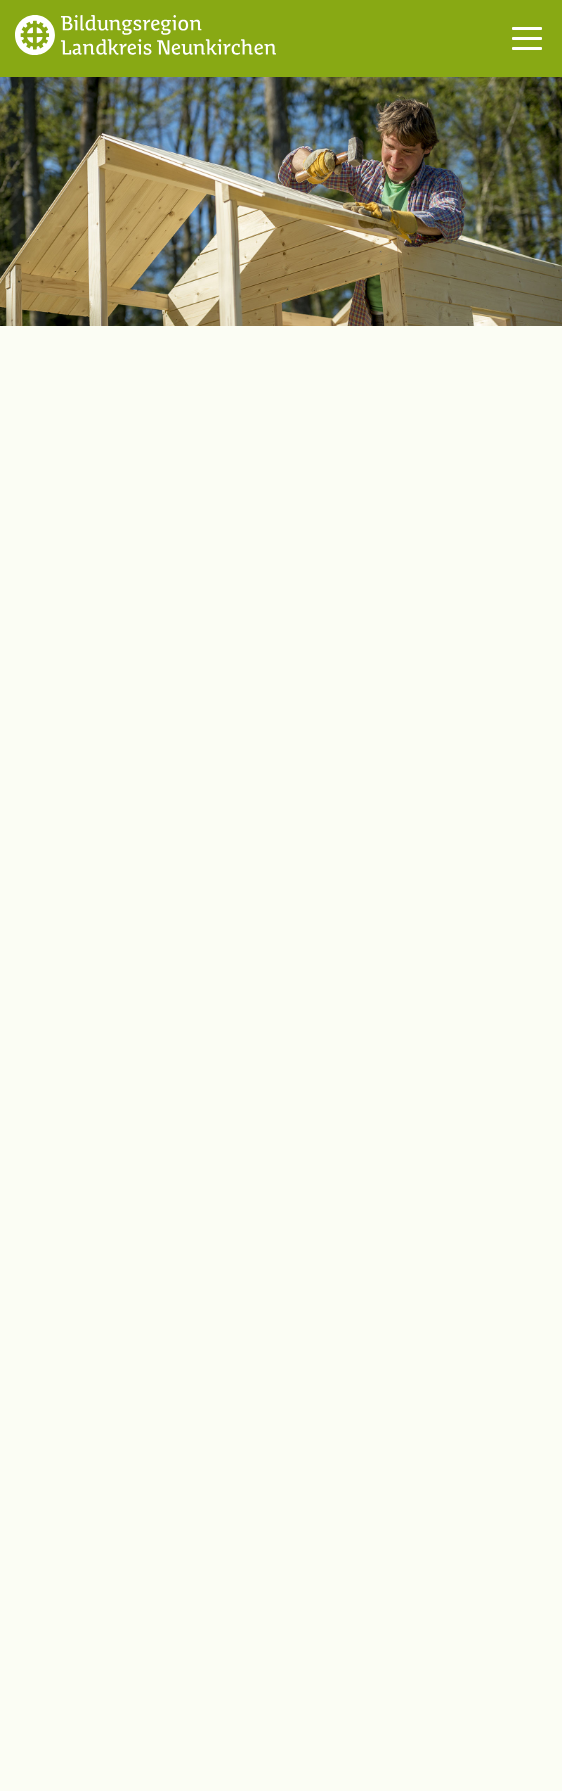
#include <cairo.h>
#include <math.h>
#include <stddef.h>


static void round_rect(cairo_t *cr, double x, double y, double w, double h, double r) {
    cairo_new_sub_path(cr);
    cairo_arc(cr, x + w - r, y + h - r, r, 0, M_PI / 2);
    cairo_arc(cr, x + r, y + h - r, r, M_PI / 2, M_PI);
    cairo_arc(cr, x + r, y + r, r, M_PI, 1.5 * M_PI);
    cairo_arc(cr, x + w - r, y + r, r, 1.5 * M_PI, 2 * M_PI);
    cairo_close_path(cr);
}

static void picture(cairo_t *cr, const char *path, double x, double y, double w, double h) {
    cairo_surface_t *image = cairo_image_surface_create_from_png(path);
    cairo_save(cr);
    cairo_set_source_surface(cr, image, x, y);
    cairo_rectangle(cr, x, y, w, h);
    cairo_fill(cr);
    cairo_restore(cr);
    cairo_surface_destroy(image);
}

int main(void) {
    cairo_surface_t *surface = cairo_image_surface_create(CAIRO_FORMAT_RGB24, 562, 1791);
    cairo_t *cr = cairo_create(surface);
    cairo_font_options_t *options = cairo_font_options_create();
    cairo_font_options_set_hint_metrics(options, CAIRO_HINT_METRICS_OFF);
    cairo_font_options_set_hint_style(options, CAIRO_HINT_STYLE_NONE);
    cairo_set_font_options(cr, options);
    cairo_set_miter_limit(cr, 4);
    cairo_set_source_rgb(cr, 0.984, 0.992, 0.957);
    cairo_paint(cr);
    cairo_set_source_rgb(cr, 0.533, 0.663, 0.082);
    cairo_rectangle(cr, 0, 0, 562, 77);
    cairo_fill(cr);
    picture(cr, "img1.png", 15, 15, 261, 40);
    cairo_set_source_rgb(cr, 1, 1, 1);
    round_rect(cr, 512, 37, 30, 3, 1);
    cairo_fill(cr);
    round_rect(cr, 512, 27, 30, 3, 1);
    cairo_fill(cr);
    round_rect(cr, 512, 47, 30, 3, 1);
    cairo_fill(cr);
    picture(cr, "img2.png", 0, 77, 562, 249);
    cairo_surface_write_to_png(surface, "page.png");
    cairo_font_options_destroy(options);
    cairo_destroy(cr);
    cairo_surface_destroy(surface);
    return 0;
}
